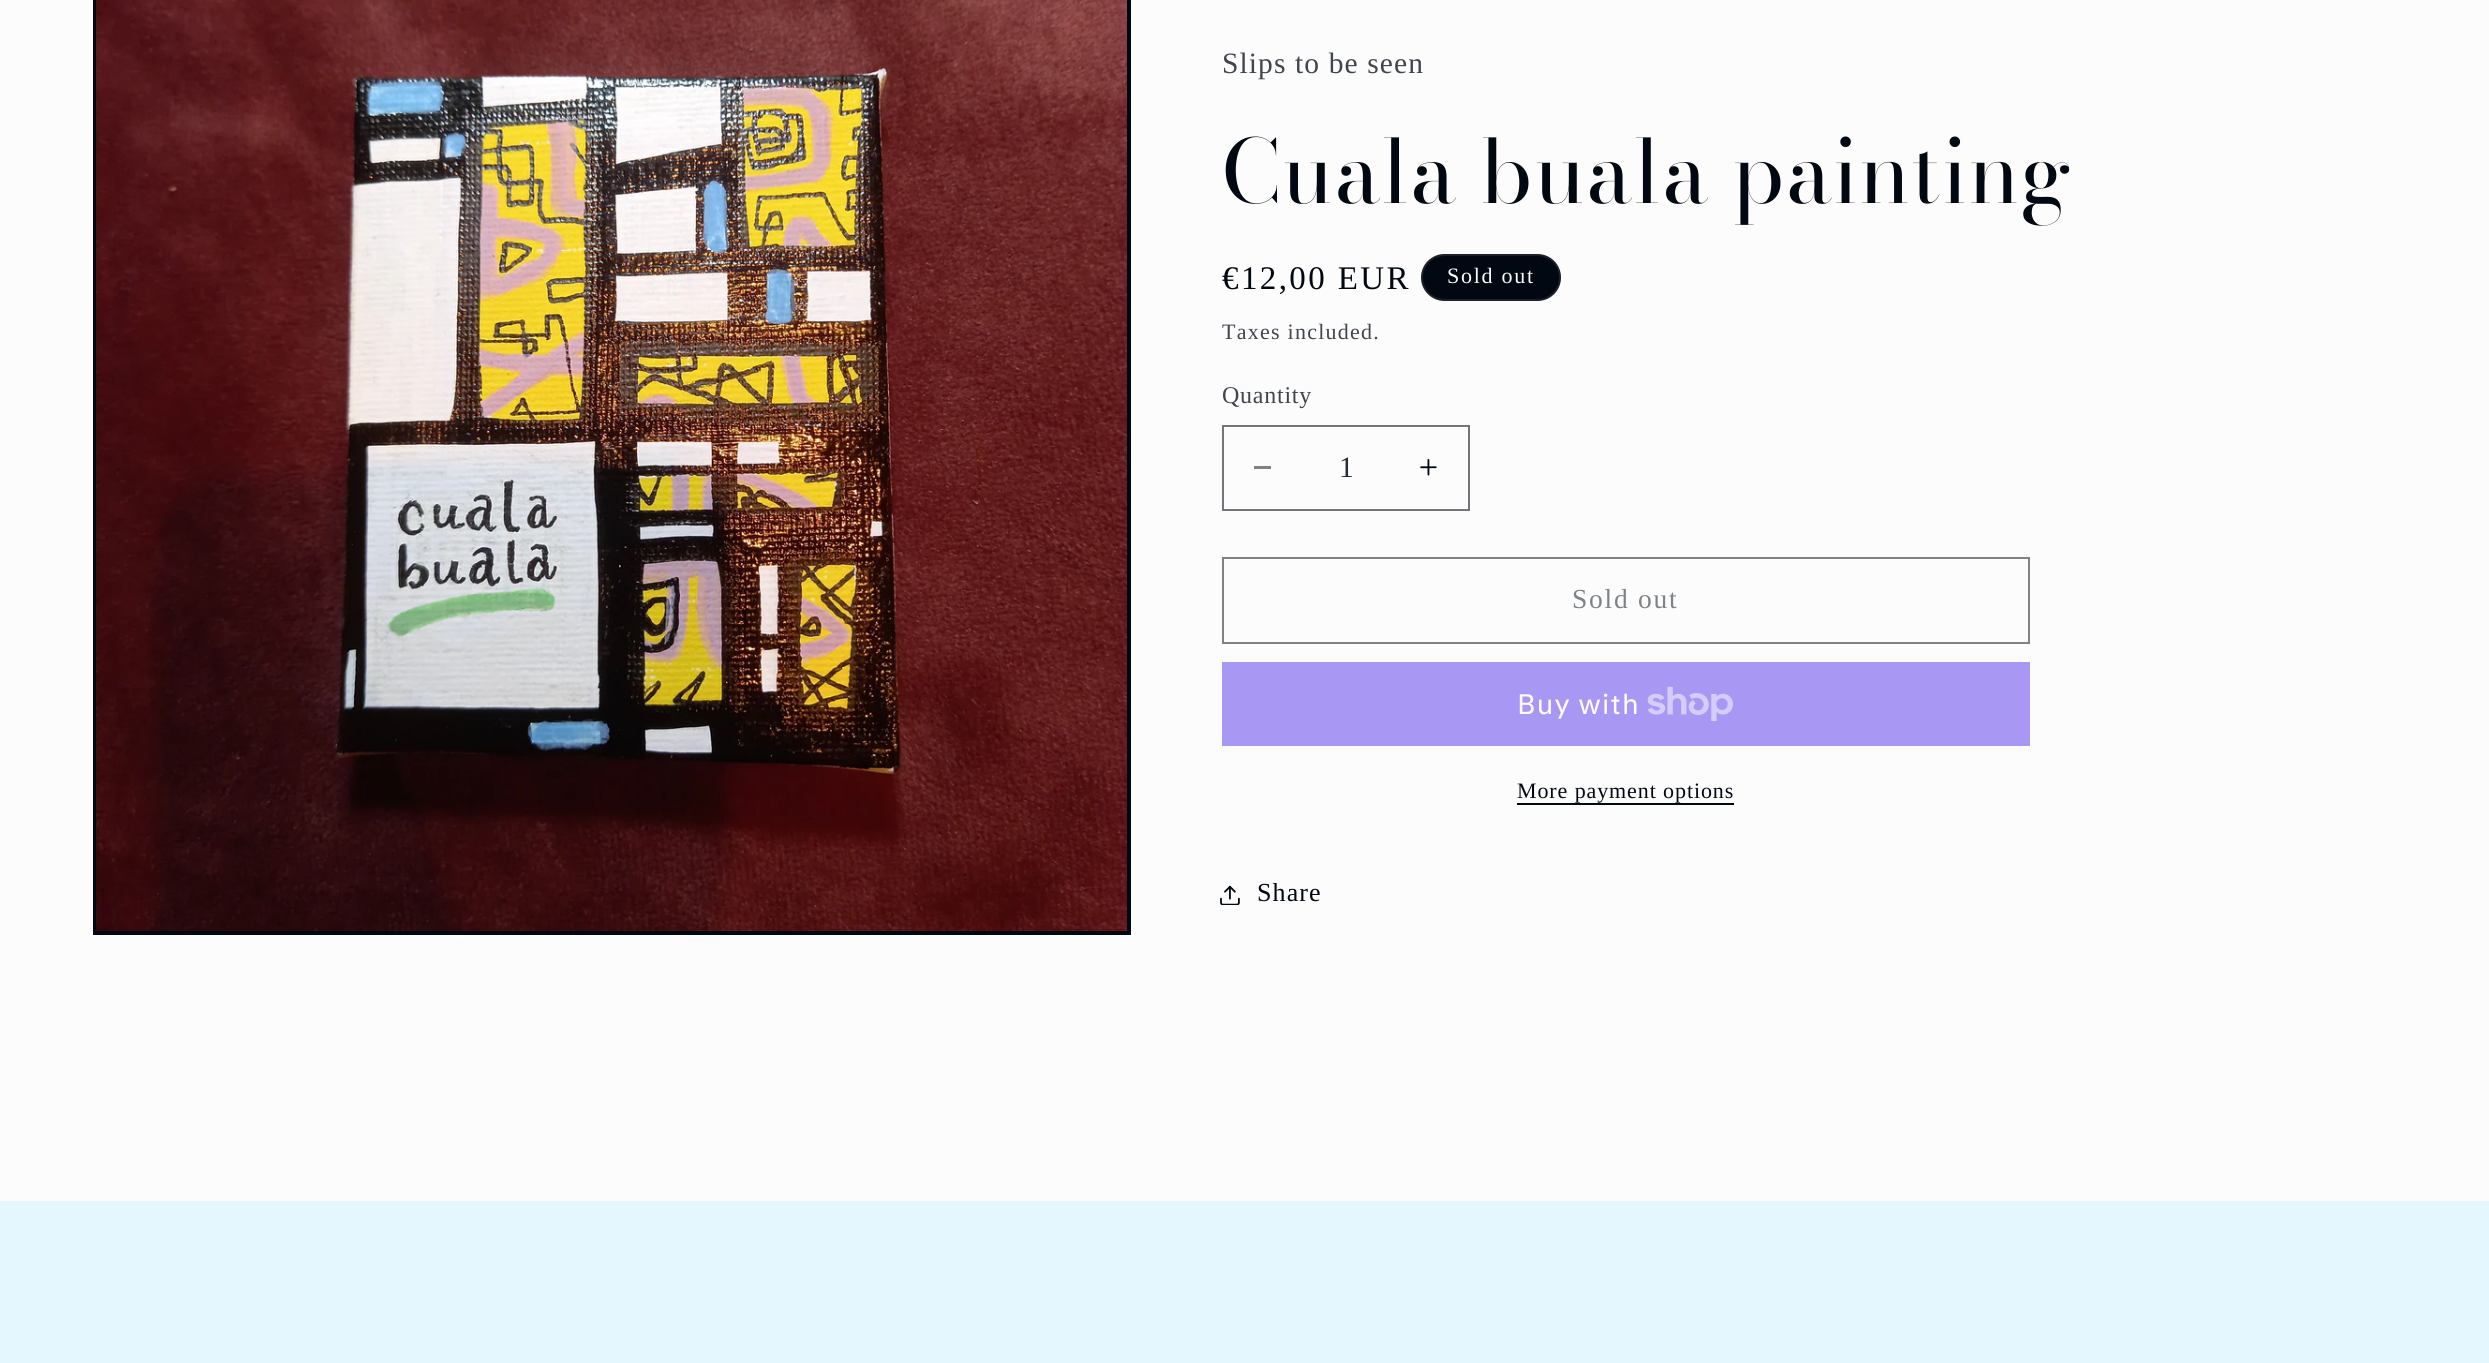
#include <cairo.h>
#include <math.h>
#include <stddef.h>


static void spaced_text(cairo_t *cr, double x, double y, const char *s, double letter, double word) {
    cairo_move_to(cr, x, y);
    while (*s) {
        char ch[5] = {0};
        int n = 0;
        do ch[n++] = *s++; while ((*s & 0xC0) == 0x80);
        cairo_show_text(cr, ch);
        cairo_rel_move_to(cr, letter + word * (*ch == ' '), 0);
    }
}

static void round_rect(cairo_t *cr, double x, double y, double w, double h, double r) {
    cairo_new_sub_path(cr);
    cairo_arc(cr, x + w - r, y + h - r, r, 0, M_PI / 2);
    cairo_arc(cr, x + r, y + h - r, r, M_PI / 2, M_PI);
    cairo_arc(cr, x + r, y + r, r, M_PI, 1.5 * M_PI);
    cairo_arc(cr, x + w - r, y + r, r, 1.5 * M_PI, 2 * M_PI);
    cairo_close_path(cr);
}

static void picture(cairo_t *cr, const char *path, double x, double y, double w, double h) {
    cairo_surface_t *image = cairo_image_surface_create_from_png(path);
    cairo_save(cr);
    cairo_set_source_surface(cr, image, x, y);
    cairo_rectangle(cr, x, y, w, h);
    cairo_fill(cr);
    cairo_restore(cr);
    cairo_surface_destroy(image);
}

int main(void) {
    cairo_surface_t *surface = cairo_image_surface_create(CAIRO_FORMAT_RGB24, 2489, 1363);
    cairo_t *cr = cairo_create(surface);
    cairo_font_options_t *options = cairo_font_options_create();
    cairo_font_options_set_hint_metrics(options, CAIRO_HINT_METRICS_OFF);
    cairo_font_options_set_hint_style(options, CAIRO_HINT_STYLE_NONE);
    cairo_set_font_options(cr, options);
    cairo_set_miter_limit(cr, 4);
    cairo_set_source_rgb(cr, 0.988, 0.988, 0.988);
    cairo_paint(cr);
    cairo_rectangle(cr, 95, -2, 1034, 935);
    cairo_set_source_rgb(cr, 0.008, 0.035, 0.071);
    cairo_set_line_width(cr, 4);
    cairo_stroke(cr);
    picture(cr, "img1.png", 96, 0, 1031, 931);
    cairo_select_font_face(cr, "Liberation Serif", CAIRO_FONT_SLANT_NORMAL, CAIRO_FONT_WEIGHT_NORMAL);
    cairo_set_font_size(cr, 29.5);
    cairo_set_source_rgb(cr, 0.255, 0.275, 0.302);
    spaced_text(cr, 1222, 73, "Slips to be seen", 1.1, 0);
    cairo_select_font_face(cr, "Bodoni Moda", CAIRO_FONT_SLANT_NORMAL, CAIRO_FONT_WEIGHT_NORMAL);
    cairo_set_font_size(cr, 87.5);
    cairo_set_source_rgb(cr, 0.008, 0.035, 0.071);
    spaced_text(cr, 1222, 203, "Cuala buala painting", 1.3, 0);
    cairo_select_font_face(cr, "Liberation Serif", CAIRO_FONT_SLANT_NORMAL, CAIRO_FONT_WEIGHT_NORMAL);
    cairo_set_font_size(cr, 33);
    spaced_text(cr, 1222, 289, "€12,00 EUR", 2.4, 0);
    round_rect(cr, 1421, 254, 140, 47, 23.5);
    cairo_fill(cr);
    round_rect(cr, 1422, 255, 138, 45, 22.5);
    cairo_set_source_rgba(cr, 0.988, 0.988, 0.988, 0.1);
    cairo_set_line_width(cr, 2);
    cairo_stroke(cr);
    cairo_set_font_size(cr, 22);
    cairo_set_source_rgb(cr, 0.988, 0.988, 0.988);
    spaced_text(cr, 1447, 283, "Sold out", 1.75, 0);
    cairo_set_source_rgb(cr, 0.255, 0.275, 0.302);
    spaced_text(cr, 1222, 339, "Taxes included.", 1.25, 0);
    cairo_set_font_size(cr, 24);
    spaced_text(cr, 1222, 403, "Quantity", 0.75, 0);
    cairo_set_source_rgb(cr, 0.498, 0.514, 0.529);
    cairo_rectangle(cr, 1254, 466, 17, 3);
    cairo_fill(cr);
    picture(cr, "img2.png", 1420, 459, 17, 17);
    cairo_rectangle(cr, 1223, 426, 246, 84);
    cairo_set_source_rgb(cr, 0.447, 0.463, 0.482);
    cairo_stroke(cr);
    cairo_set_font_size(cr, 29.5);
    cairo_set_source_rgb(cr, 0.157, 0.176, 0.208);
    cairo_move_to(cr, 1339, 477);
    cairo_show_text(cr, "1");
    cairo_rectangle(cr, 1223, 558, 806, 85);
    cairo_set_source_rgb(cr, 0.498, 0.514, 0.529);
    cairo_stroke(cr);
    cairo_set_font_size(cr, 27.5);
    spaced_text(cr, 1572, 608, "Sold out", 1.75, 0);
    cairo_set_source_rgb(cr, 0.659, 0.596, 0.957);
    cairo_rectangle(cr, 1222, 662, 808, 84);
    cairo_fill(cr);
    cairo_select_font_face(cr, "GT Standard", CAIRO_FONT_SLANT_NORMAL, CAIRO_FONT_WEIGHT_NORMAL);
    cairo_set_font_size(cr, 28);
    cairo_set_source_rgb(cr, 0.988, 0.988, 0.988);
    spaced_text(cr, 1517, 714, "Buy with", 1.1, 0);
    picture(cr, "img3.png", 1647, 686, 86, 35);
    cairo_select_font_face(cr, "Liberation Serif", CAIRO_FONT_SLANT_NORMAL, CAIRO_FONT_WEIGHT_NORMAL);
    cairo_set_font_size(cr, 22);
    cairo_set_source_rgb(cr, 0.008, 0.035, 0.071);
    spaced_text(cr, 1517, 798, "More payment options", 0.9, 0);
    cairo_rectangle(cr, 1517, 803, 217, 2);
    cairo_fill(cr);
    picture(cr, "img4.png", 1220, 885, 20, 20);
    cairo_set_font_size(cr, 26);
    spaced_text(cr, 1257, 901, "Share", 1.1, 0);
    cairo_set_source_rgb(cr, 0.894, 0.965, 1);
    cairo_rectangle(cr, 0, 1201, 2489, 162);
    cairo_fill(cr);
    cairo_surface_write_to_png(surface, "page.png");
    cairo_font_options_destroy(options);
    cairo_destroy(cr);
    cairo_surface_destroy(surface);
    return 0;
}
